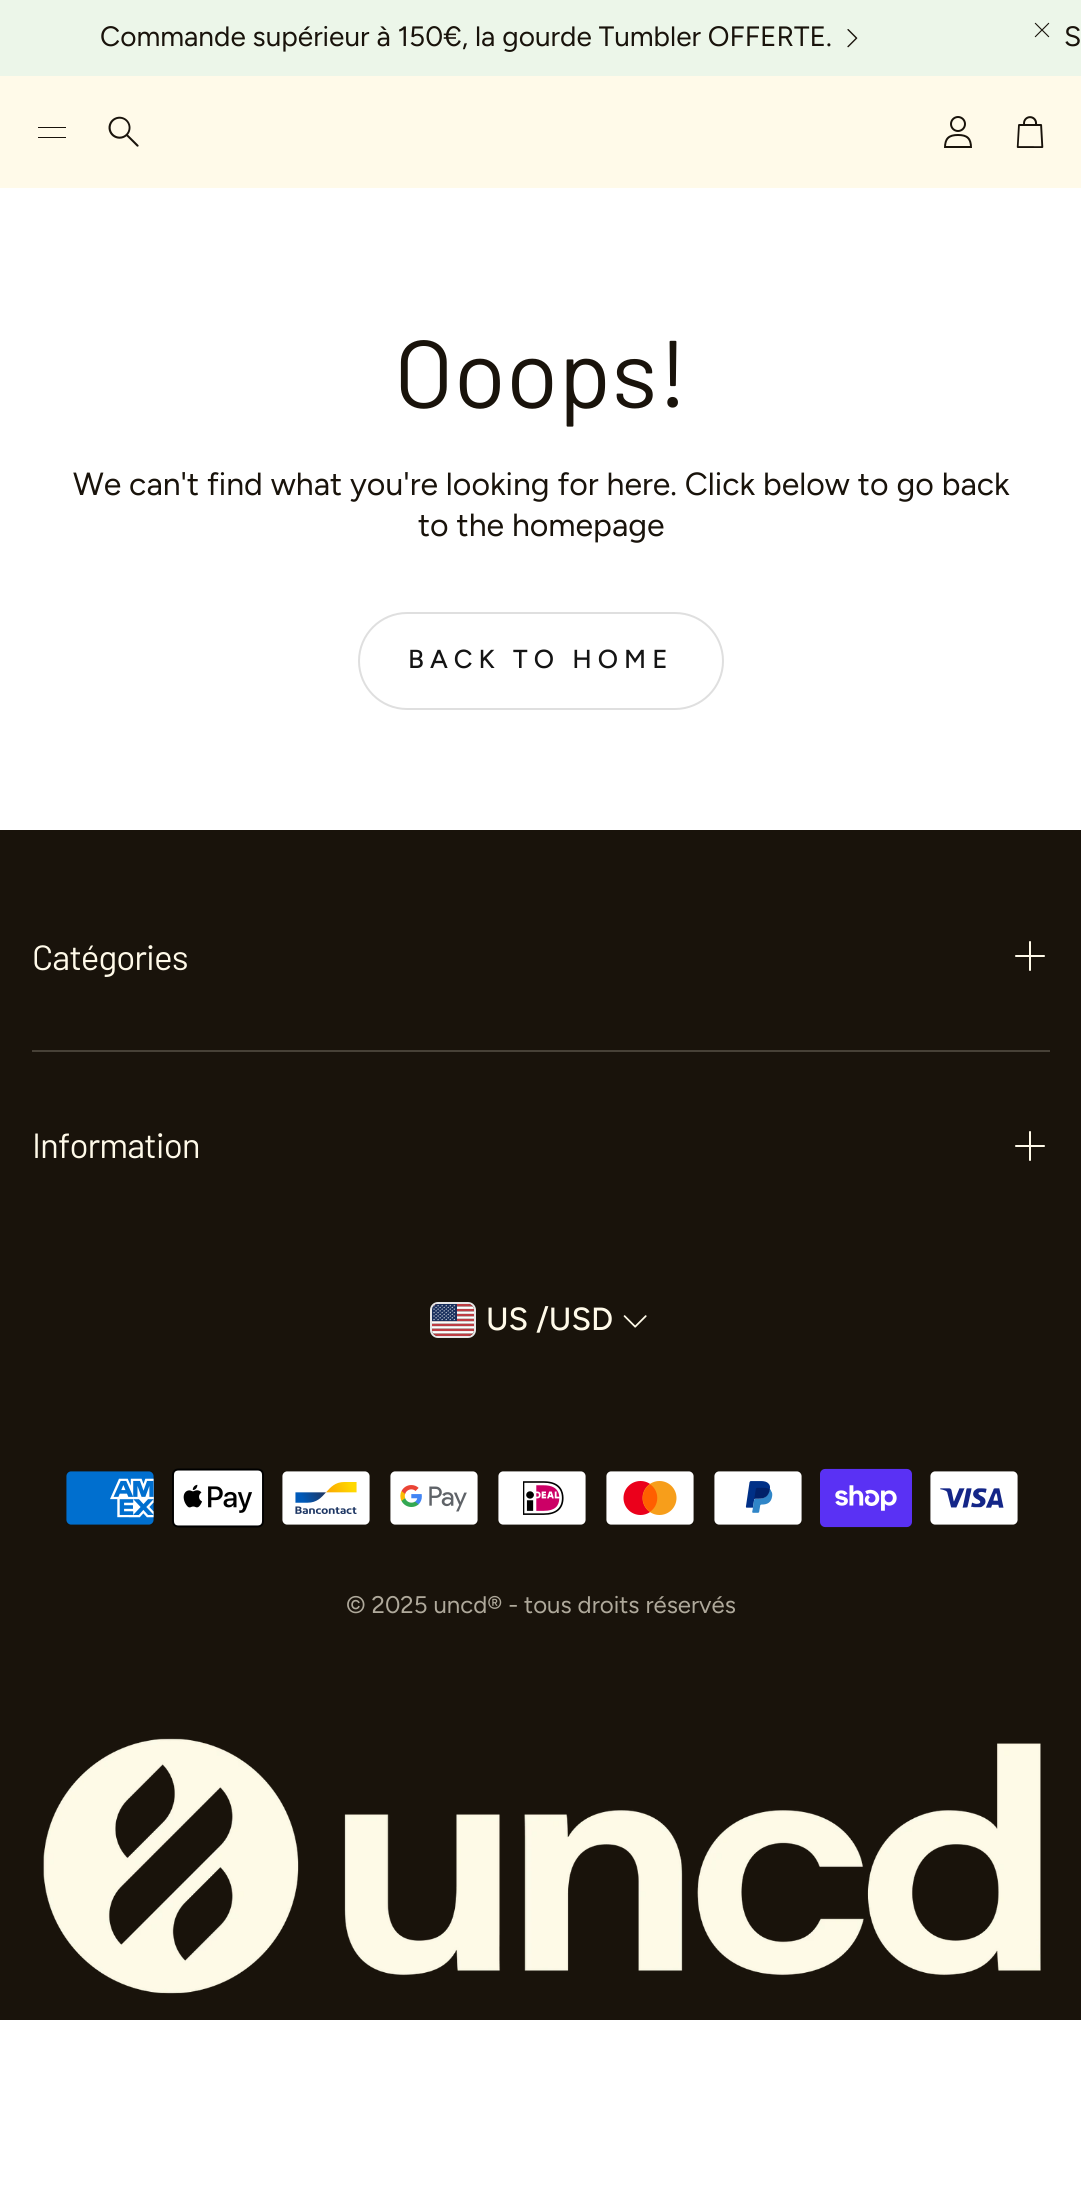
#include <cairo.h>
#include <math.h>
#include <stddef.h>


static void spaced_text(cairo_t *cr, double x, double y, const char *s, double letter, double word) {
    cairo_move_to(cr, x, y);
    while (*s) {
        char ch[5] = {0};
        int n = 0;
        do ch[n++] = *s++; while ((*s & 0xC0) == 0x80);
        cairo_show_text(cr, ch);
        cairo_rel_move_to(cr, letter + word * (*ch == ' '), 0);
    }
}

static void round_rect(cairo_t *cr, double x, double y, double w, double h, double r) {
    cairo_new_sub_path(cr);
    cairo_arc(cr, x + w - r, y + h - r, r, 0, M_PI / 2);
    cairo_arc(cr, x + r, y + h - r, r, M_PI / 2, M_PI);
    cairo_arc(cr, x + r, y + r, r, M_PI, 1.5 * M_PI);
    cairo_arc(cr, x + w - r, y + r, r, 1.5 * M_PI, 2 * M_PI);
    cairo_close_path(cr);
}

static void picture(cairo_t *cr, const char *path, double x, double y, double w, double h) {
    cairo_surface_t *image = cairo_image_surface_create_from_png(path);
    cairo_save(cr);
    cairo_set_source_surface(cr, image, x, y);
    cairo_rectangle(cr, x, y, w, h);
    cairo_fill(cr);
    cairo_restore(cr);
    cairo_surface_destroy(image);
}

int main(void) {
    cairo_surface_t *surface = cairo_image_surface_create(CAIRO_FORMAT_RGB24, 1081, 2212);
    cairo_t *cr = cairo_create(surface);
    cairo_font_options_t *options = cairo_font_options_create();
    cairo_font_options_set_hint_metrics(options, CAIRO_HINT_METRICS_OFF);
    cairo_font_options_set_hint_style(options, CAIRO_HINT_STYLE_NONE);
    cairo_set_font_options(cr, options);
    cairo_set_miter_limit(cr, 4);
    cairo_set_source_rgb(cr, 1, 1, 1);
    cairo_paint(cr);
    cairo_set_source_rgb(cr, 0.925, 0.961, 0.914);
    cairo_rectangle(cr, 0, 0, 1081, 76);
    cairo_fill(cr);
    picture(cr, "img1.png", 1034, 22, 16, 16);
    cairo_select_font_face(cr, "Figtree", CAIRO_FONT_SLANT_NORMAL, CAIRO_FONT_WEIGHT_NORMAL);
    cairo_set_font_size(cr, 28);
    cairo_set_source_rgb(cr, 0.098, 0.075, 0.043);
    cairo_move_to(cr, 100, 46);
    cairo_show_text(cr, "Commande supérieur à 150€, la gourde Tumbler OFFERTE.");
    picture(cr, "img2.png", 847, 29, 11, 19);
    cairo_move_to(cr, 1064, 46);
    cairo_show_text(cr, "S");
    cairo_set_source_rgb(cr, 1, 0.98, 0.914);
    cairo_rectangle(cr, 0, 76, 1081, 112);
    cairo_fill(cr);
    cairo_set_source_rgb(cr, 0.098, 0.075, 0.043);
    cairo_rectangle(cr, 38, 127, 28, 1);
    cairo_fill(cr);
    cairo_rectangle(cr, 38, 137, 28, 1);
    cairo_fill(cr);
    picture(cr, "img3.png", 108, 116, 31, 31);
    picture(cr, "img4.png", 944, 116, 28, 32);
    picture(cr, "img5.png", 1016, 116, 28, 32);
    cairo_select_font_face(cr, "Barlow", CAIRO_FONT_SLANT_NORMAL, CAIRO_FONT_WEIGHT_NORMAL);
    cairo_set_font_size(cr, 96);
    cairo_move_to(cr, 394, 408);
    cairo_show_text(cr, "Ooops!");
    cairo_select_font_face(cr, "Figtree", CAIRO_FONT_SLANT_NORMAL, CAIRO_FONT_WEIGHT_NORMAL);
    cairo_set_font_size(cr, 32);
    cairo_move_to(cr, 73, 495);
    cairo_show_text(cr, "We can't find what you're looking for here. Click below to go back");
    cairo_move_to(cr, 418, 536);
    cairo_show_text(cr, "to the homepage");
    round_rect(cr, 359, 613, 364, 96, 48);
    cairo_set_source_rgb(cr, 0.875, 0.875, 0.875);
    cairo_stroke(cr);
    cairo_select_font_face(cr, "Figtree Medium", CAIRO_FONT_SLANT_NORMAL, CAIRO_FONT_WEIGHT_NORMAL);
    cairo_set_font_size(cr, 26);
    cairo_set_source_rgb(cr, 0.082, 0.082, 0.082);
    spaced_text(cr, 408, 668, "BACK TO HOME", 6, 0);
    cairo_set_source_rgb(cr, 0.098, 0.075, 0.043);
    cairo_rectangle(cr, 0, 830, 1081, 1190);
    cairo_fill(cr);
    cairo_select_font_face(cr, "Barlow", CAIRO_FONT_SLANT_NORMAL, CAIRO_FONT_WEIGHT_NORMAL);
    cairo_set_font_size(cr, 35);
    cairo_set_source_rgb(cr, 1, 0.98, 0.914);
    spaced_text(cr, 32, 970, "Catégories", -1, 0);
    round_rect(cr, 1015, 955, 30, 2, 1);
    cairo_fill(cr);
    round_rect(cr, 1029, 941, 2, 30, 1);
    cairo_fill(cr);
    cairo_set_source_rgb(cr, 0.278, 0.255, 0.216);
    cairo_rectangle(cr, 32, 1050, 1018, 2);
    cairo_fill(cr);
    cairo_set_source_rgb(cr, 1, 0.98, 0.914);
    spaced_text(cr, 32, 1158, "Information", -1, 0);
    round_rect(cr, 1015, 1145, 30, 2, 1);
    cairo_fill(cr);
    round_rect(cr, 1029, 1131, 2, 30, 1);
    cairo_fill(cr);
    round_rect(cr, 431, 1303, 44, 34, 7);
    cairo_set_source_rgb(cr, 0.906, 0.906, 0.906);
    cairo_stroke(cr);
    picture(cr, "img6.png", 432, 1304, 42, 32);
    cairo_select_font_face(cr, "Figtree Medium", CAIRO_FONT_SLANT_NORMAL, CAIRO_FONT_WEIGHT_NORMAL);
    cairo_set_font_size(cr, 32);
    cairo_set_source_rgb(cr, 1, 0.98, 0.914);
    cairo_move_to(cr, 486, 1330);
    cairo_show_text(cr, "US /USD");
    picture(cr, "img7.png", 623, 1315, 24, 13);
    picture(cr, "img8.png", 66, 1471, 88, 54);
    picture(cr, "img9.png", 172, 1468, 92, 60);
    picture(cr, "img10.png", 282, 1471, 88, 54);
    picture(cr, "img11.png", 390, 1471, 88, 54);
    picture(cr, "img12.png", 498, 1471, 88, 54);
    picture(cr, "img13.png", 606, 1471, 88, 54);
    picture(cr, "img14.png", 714, 1471, 88, 54);
    picture(cr, "img15.png", 820, 1468, 92, 60);
    picture(cr, "img16.png", 930, 1471, 88, 54);
    cairo_select_font_face(cr, "Figtree", CAIRO_FONT_SLANT_NORMAL, CAIRO_FONT_WEIGHT_NORMAL);
    cairo_set_font_size(cr, 24);
    cairo_set_source_rgb(cr, 0.686, 0.663, 0.608);
    cairo_move_to(cr, 346, 1613);
    cairo_show_text(cr, "© 2025 uncd® - tous droits réservés");
    picture(cr, "img17.png", 43, 1738, 998, 256);
    cairo_surface_write_to_png(surface, "page.png");
    cairo_font_options_destroy(options);
    cairo_destroy(cr);
    cairo_surface_destroy(surface);
    return 0;
}
